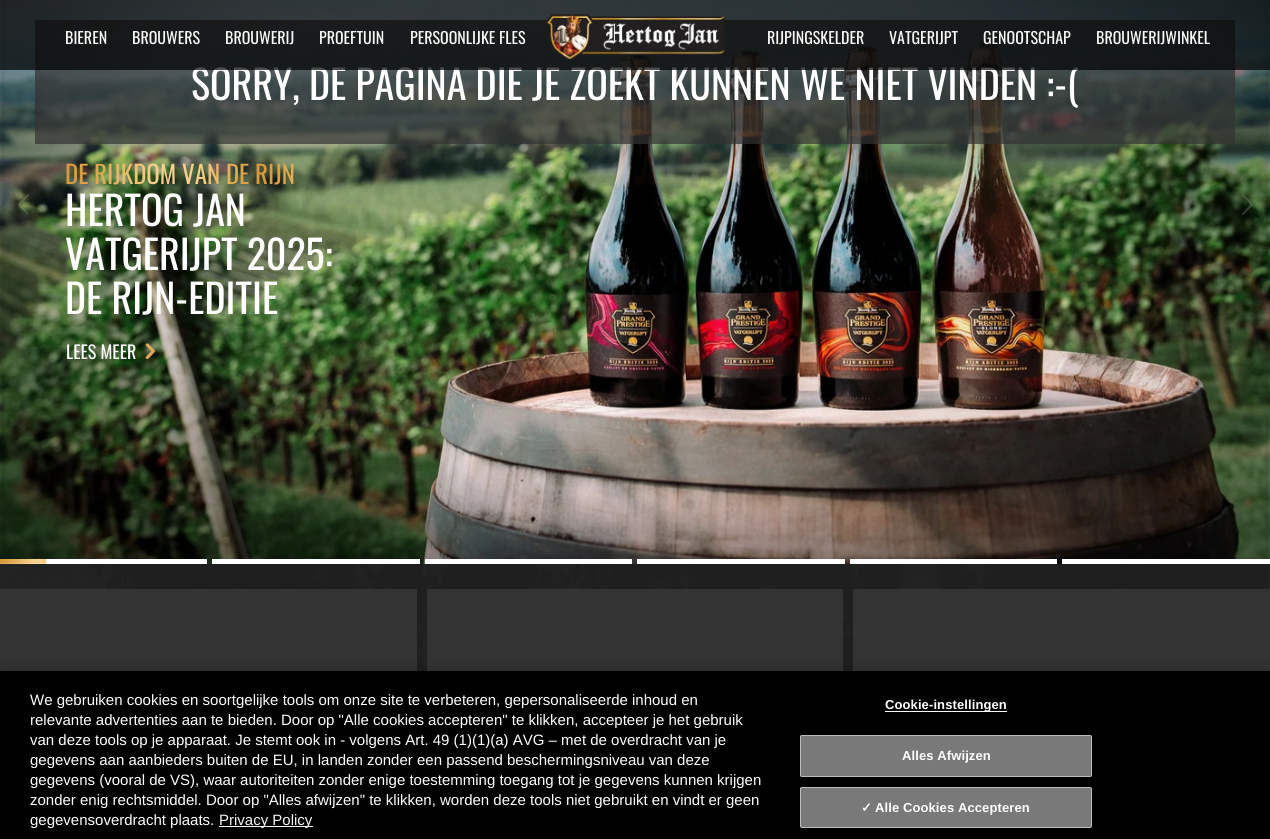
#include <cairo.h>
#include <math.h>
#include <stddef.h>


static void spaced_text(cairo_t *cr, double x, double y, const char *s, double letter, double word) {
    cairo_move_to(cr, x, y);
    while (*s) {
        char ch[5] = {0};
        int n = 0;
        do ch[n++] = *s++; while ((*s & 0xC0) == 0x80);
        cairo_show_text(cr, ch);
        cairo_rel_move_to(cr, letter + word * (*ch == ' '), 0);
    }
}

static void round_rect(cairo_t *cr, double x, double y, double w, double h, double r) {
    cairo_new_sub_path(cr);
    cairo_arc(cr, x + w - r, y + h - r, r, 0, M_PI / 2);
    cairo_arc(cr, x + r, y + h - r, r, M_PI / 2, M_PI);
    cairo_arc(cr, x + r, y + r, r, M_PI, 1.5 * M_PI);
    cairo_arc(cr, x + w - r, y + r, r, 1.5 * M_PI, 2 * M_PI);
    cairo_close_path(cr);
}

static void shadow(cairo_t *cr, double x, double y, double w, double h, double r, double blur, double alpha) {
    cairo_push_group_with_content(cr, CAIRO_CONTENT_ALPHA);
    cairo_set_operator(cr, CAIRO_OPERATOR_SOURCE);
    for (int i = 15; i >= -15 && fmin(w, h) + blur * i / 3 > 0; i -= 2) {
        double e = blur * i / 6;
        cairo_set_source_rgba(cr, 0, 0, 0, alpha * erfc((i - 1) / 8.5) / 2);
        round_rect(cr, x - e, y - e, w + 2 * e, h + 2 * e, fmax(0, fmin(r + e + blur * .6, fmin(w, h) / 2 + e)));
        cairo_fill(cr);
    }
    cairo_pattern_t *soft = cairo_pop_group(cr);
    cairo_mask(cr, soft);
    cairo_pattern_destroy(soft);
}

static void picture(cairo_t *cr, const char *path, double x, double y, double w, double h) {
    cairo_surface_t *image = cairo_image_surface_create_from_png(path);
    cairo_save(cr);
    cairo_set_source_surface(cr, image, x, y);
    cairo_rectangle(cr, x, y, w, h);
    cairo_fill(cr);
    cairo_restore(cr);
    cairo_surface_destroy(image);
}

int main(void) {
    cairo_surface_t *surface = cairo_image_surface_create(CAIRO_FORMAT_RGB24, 1270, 839);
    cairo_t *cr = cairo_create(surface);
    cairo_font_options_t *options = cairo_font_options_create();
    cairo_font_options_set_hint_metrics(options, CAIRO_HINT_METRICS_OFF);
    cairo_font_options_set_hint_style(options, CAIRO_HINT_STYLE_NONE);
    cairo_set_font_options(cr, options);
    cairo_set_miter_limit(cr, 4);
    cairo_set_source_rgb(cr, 1, 1, 1);
    cairo_paint(cr);
    picture(cr, "img1.png", 0, 563, 1270, 108);
    picture(cr, "img4.png", 0, 0, 1270, 564);
    cairo_set_source_rgba(cr, 0.2, 0.2, 0.2, 0.7);
    cairo_rectangle(cr, 35, 20, 1200, 124);
    cairo_fill(cr);
    cairo_select_font_face(cr, "Oswald", CAIRO_FONT_SLANT_NORMAL, CAIRO_FONT_WEIGHT_NORMAL);
    cairo_set_font_size(cr, 40);
    cairo_set_source_rgb(cr, 1, 1, 1);
    cairo_move_to(cr, 191, 100);
    cairo_show_text(cr, "SORRY, DE PAGINA DIE JE ZOEKT KUNNEN WE NIET VINDEN :-(");
    cairo_set_source_rgba(cr, 0, 0, 0, 0.7);
    cairo_rectangle(cr, 0, 0, 1270, 70);
    cairo_fill(cr);
    picture(cr, "img2.png", 545, 14, 180, 45);
    cairo_set_font_size(cr, 16);
    cairo_set_source_rgb(cr, 0.965, 0.965, 0.965);
    cairo_move_to(cr, 65, 44);
    cairo_show_text(cr, "BIEREN");
    cairo_move_to(cr, 132, 44);
    cairo_show_text(cr, "BROUWERS");
    cairo_move_to(cr, 225, 44);
    cairo_show_text(cr, "BROUWERIJ");
    cairo_move_to(cr, 319, 44);
    cairo_show_text(cr, "PROEFTUIN");
    cairo_move_to(cr, 410, 44);
    cairo_show_text(cr, "PERSOONLIJKE FLES");
    cairo_move_to(cr, 767, 44);
    cairo_show_text(cr, "RIJPINGSKELDER");
    cairo_move_to(cr, 889, 44);
    cairo_show_text(cr, "VATGERIJPT");
    cairo_move_to(cr, 983, 44);
    cairo_show_text(cr, "GENOOTSCHAP");
    cairo_move_to(cr, 1096, 44);
    cairo_show_text(cr, "BROUWERIJWINKEL");
    picture(cr, "img3.png", 18, 194, 11, 21);
    picture(cr, "img5.png", 66, 163, 228, 22);
    cairo_set_font_size(cr, 40);
    cairo_set_source_rgb(cr, 1, 1, 1);
    cairo_move_to(cr, 65, 226);
    cairo_show_text(cr, "HERTOG JAN");
    cairo_move_to(cr, 65, 270);
    cairo_show_text(cr, "VATGERIJPT 2025:");
    cairo_move_to(cr, 65, 314);
    cairo_show_text(cr, "DE RIJN-EDITIE");
    cairo_set_font_size(cr, 18);
    cairo_move_to(cr, 66, 359);
    cairo_show_text(cr, "LEES MEER");
    picture(cr, "img6.png", 145, 343, 10, 16);
    picture(cr, "img7.png", 1242, 194, 11, 21);
    cairo_rectangle(cr, 0, 559, 207, 5);
    cairo_fill(cr);
    picture(cr, "img8.png", 0, 559, 46, 5);
    cairo_rectangle(cr, 212, 559, 208, 5);
    cairo_fill(cr);
    cairo_rectangle(cr, 425, 559, 207, 5);
    cairo_fill(cr);
    cairo_rectangle(cr, 637, 559, 208, 5);
    cairo_fill(cr);
    cairo_rectangle(cr, 850, 559, 207, 5);
    cairo_fill(cr);
    cairo_rectangle(cr, 1062, 559, 208, 5);
    cairo_fill(cr);
    cairo_set_source_rgb(cr, 0.2, 0.2, 0.2);
    cairo_rectangle(cr, 0, 589, 417, 82);
    cairo_fill(cr);
    cairo_rectangle(cr, 427, 589, 416, 82);
    cairo_fill(cr);
    cairo_rectangle(cr, 853, 589, 417, 82);
    cairo_fill(cr);
    cairo_set_source_rgb(cr, 0, 0, 0);
    shadow(cr, 0, 671, 1270, 168, 0, 9, 0.2);
    cairo_set_source_rgb(cr, 0, 0, 0);
    cairo_rectangle(cr, 0, 671, 1270, 168);
    cairo_fill(cr);
    cairo_select_font_face(cr, "Liberation Sans", CAIRO_FONT_SLANT_NORMAL, CAIRO_FONT_WEIGHT_NORMAL);
    cairo_set_font_size(cr, 15);
    cairo_set_source_rgb(cr, 1, 1, 1);
    cairo_move_to(cr, 30, 705);
    cairo_show_text(cr, "We gebruiken cookies en soortgelijke tools om onze site te verbeteren, gepersonaliseerde inhoud en");
    cairo_move_to(cr, 30, 725);
    cairo_show_text(cr, "relevante advertenties aan te bieden. Door op \"Alle cookies accepteren\" te klikken, accepteer je het gebruik");
    cairo_move_to(cr, 30, 745);
    cairo_show_text(cr, "van deze tools op je apparaat. Je stemt ook in - volgens Art. 49 (1)(1)(a) AVG – met de overdracht van je");
    cairo_move_to(cr, 30, 765);
    cairo_show_text(cr, "gegevens aan aanbieders buiten de EU, in landen zonder een passend beschermingsniveau van deze");
    cairo_move_to(cr, 30, 785);
    cairo_show_text(cr, "gegevens (vooral de VS), waar autoriteiten zonder enige toestemming toegang tot je gegevens kunnen krijgen");
    cairo_move_to(cr, 30, 805);
    cairo_show_text(cr, "zonder enig rechtsmiddel. Door op \"Alles afwijzen\" te klikken, worden deze tools niet gebruikt en vindt er geen");
    cairo_move_to(cr, 30, 825);
    cairo_show_text(cr, "gegevensoverdracht plaats.");
    cairo_set_source_rgb(cr, 0.961, 0.961, 0.961);
    cairo_rectangle(cr, 219, 826, 94, 1);
    cairo_fill(cr);
    cairo_set_source_rgb(cr, 0.965, 0.965, 0.965);
    cairo_move_to(cr, 219, 825);
    cairo_show_text(cr, "Privacy Policy");
    cairo_set_source_rgb(cr, 1, 1, 1);
    cairo_rectangle(cr, 885, 711, 122, 1);
    cairo_fill(cr);
    cairo_select_font_face(cr, "Liberation Sans", CAIRO_FONT_SLANT_NORMAL, CAIRO_FONT_WEIGHT_BOLD);
    cairo_set_font_size(cr, 13);
    spaced_text(cr, 885, 709, "Cookie-instellingen", 0.1, 0);
    cairo_set_source_rgb(cr, 0.475, 0.475, 0.475);
    round_rect(cr, 800, 735, 292, 42, 2);
    cairo_fill(cr);
    round_rect(cr, 800.5, 735.5, 291, 41, 1.5);
    cairo_set_source_rgba(cr, 1, 1, 1, 0.5);
    cairo_set_line_width(cr, 1);
    cairo_stroke(cr);
    cairo_set_source_rgb(cr, 1, 1, 1);
    spaced_text(cr, 902, 760, "Alles Afwijzen", 0.1, 0);
    cairo_set_source_rgb(cr, 0.475, 0.475, 0.475);
    round_rect(cr, 800, 787, 292, 41, 2);
    cairo_fill(cr);
    round_rect(cr, 800.5, 787.5, 291, 40, 1.5);
    cairo_set_source_rgba(cr, 1, 1, 1, 0.5);
    cairo_stroke(cr);
    cairo_select_font_face(cr, "DejaVu Sans", CAIRO_FONT_SLANT_NORMAL, CAIRO_FONT_WEIGHT_BOLD);
    cairo_set_source_rgb(cr, 1, 1, 1);
    spaced_text(cr, 861, 812, "✓", 0.1, 0);
    cairo_select_font_face(cr, "Liberation Sans", CAIRO_FONT_SLANT_NORMAL, CAIRO_FONT_WEIGHT_BOLD);
    spaced_text(cr, 875, 812, "Alle Cookies Accepteren", 0.1, 0);
    cairo_surface_write_to_png(surface, "page.png");
    cairo_font_options_destroy(options);
    cairo_destroy(cr);
    cairo_surface_destroy(surface);
    return 0;
}
